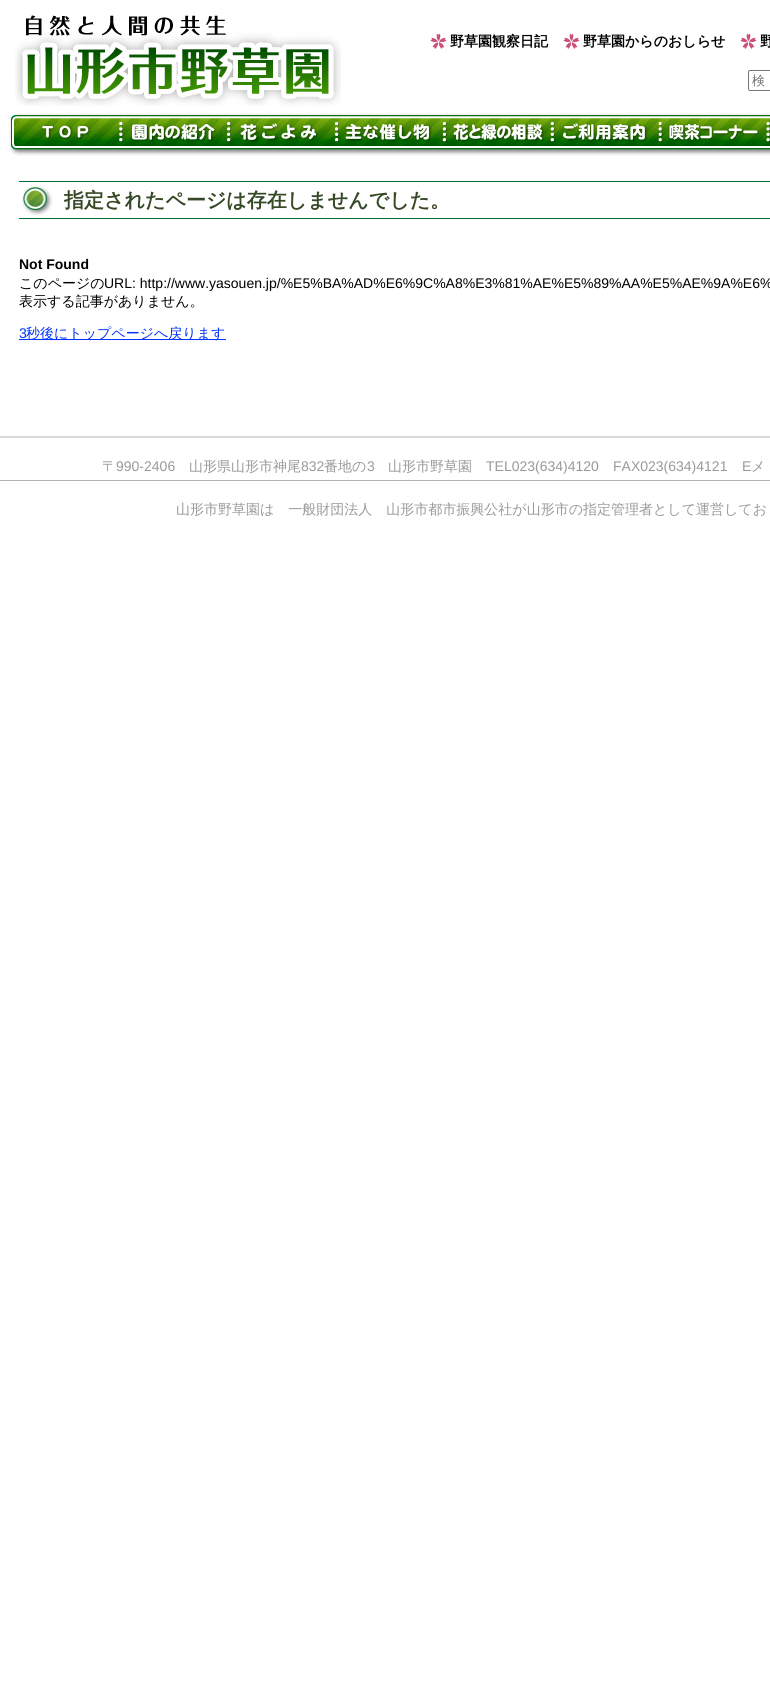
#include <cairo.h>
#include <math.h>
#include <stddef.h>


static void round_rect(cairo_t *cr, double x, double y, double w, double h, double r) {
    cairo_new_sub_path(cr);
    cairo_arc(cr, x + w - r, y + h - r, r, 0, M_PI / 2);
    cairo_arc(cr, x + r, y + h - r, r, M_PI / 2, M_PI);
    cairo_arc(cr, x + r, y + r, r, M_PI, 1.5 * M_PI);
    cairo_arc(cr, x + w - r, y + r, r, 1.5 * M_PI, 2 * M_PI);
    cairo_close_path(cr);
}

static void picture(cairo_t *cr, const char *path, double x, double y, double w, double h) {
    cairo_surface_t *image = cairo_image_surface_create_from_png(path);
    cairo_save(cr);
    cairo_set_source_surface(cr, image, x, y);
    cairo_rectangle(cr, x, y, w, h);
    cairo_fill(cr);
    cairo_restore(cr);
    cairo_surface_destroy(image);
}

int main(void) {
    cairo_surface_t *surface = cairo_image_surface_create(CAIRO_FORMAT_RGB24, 770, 1697);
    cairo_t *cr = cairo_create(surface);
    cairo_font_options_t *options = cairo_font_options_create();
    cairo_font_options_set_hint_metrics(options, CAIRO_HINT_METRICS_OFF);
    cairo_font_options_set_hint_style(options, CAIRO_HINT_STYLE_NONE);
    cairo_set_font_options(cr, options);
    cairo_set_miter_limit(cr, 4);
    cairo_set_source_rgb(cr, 1, 1, 1);
    cairo_paint(cr);
    picture(cr, "img1.png", 15, 15, 326, 91);
    picture(cr, "img2.png", 430, 33, 17, 16);
    cairo_select_font_face(cr, "WenQuanYi Zen Hei", CAIRO_FONT_SLANT_NORMAL, CAIRO_FONT_WEIGHT_BOLD);
    cairo_set_font_size(cr, 14);
    cairo_set_source_rgb(cr, 0, 0, 0);
    cairo_move_to(cr, 450, 46);
    cairo_show_text(cr, "野草園観察日記");
    picture(cr, "img2.png", 563, 33, 17, 16);
    cairo_move_to(cr, 583, 46);
    cairo_show_text(cr, "野草園からのおしらせ");
    picture(cr, "img2.png", 740, 33, 17, 16);
    cairo_move_to(cr, 760, 46);
    cairo_show_text(cr, "野");
    round_rect(cr, 748.5, 70.5, 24, 20, 1.5);
    cairo_set_source_rgb(cr, 0.463, 0.463, 0.463);
    cairo_set_line_width(cr, 1);
    cairo_stroke(cr);
    cairo_select_font_face(cr, "WenQuanYi Zen Hei Medium", CAIRO_FONT_SLANT_NORMAL, CAIRO_FONT_WEIGHT_NORMAL);
    cairo_set_font_size(cr, 13);
    cairo_set_source_rgb(cr, 0.459, 0.459, 0.459);
    cairo_move_to(cr, 752, 85);
    cairo_show_text(cr, "検");
    picture(cr, "img3.png", 4, 111, 766, 45);
    picture(cr, "img4.png", 42, 125, 49, 15);
    picture(cr, "img5.png", 131, 123, 86, 19);
    picture(cr, "img6.png", 240, 123, 78, 20);
    picture(cr, "img7.png", 345, 123, 87, 19);
    picture(cr, "img8.png", 453, 123, 92, 20);
    picture(cr, "img9.png", 563, 123, 85, 19);
    picture(cr, "img10.png", 668, 123, 91, 19);
    picture(cr, "img11.png", 22, 186, 31, 30);
    cairo_set_source_rgb(cr, 0, 0.42, 0.2);
    cairo_rectangle(cr, 19, 181, 751, 1);
    cairo_fill(cr);
    cairo_rectangle(cr, 19, 218, 751, 1);
    cairo_fill(cr);
    cairo_select_font_face(cr, "WenQuanYi Zen Hei", CAIRO_FONT_SLANT_NORMAL, CAIRO_FONT_WEIGHT_BOLD);
    cairo_set_font_size(cr, 20);
    cairo_set_source_rgb(cr, 0.212, 0.286, 0.149);
    cairo_move_to(cr, 64, 207);
    cairo_show_text(cr, "指定されたページは存在しませんでした。");
    cairo_select_font_face(cr, "Liberation Sans", CAIRO_FONT_SLANT_NORMAL, CAIRO_FONT_WEIGHT_BOLD);
    cairo_set_font_size(cr, 14);
    cairo_set_source_rgb(cr, 0, 0, 0);
    cairo_move_to(cr, 19, 269);
    cairo_show_text(cr, "Not Found");
    cairo_select_font_face(cr, "WenQuanYi Zen Hei Medium", CAIRO_FONT_SLANT_NORMAL, CAIRO_FONT_WEIGHT_NORMAL);
    cairo_move_to(cr, 19, 288);
    cairo_show_text(cr, "このページの");
    cairo_select_font_face(cr, "Liberation Sans", CAIRO_FONT_SLANT_NORMAL, CAIRO_FONT_WEIGHT_NORMAL);
    cairo_move_to(cr, 104, 288);
    cairo_show_text(cr, "URL: http://www.yasouen.jp/%E5%BA%AD%E6%9C%A8%E3%81%AE%E5%89%AA%E5%AE%9A%E6%");
    cairo_select_font_face(cr, "WenQuanYi Zen Hei Medium", CAIRO_FONT_SLANT_NORMAL, CAIRO_FONT_WEIGHT_NORMAL);
    cairo_move_to(cr, 19, 306);
    cairo_show_text(cr, "表示する記事がありません。");
    cairo_select_font_face(cr, "Liberation Sans", CAIRO_FONT_SLANT_NORMAL, CAIRO_FONT_WEIGHT_NORMAL);
    cairo_set_source_rgb(cr, 0, 0.2, 1);
    cairo_move_to(cr, 19, 338);
    cairo_show_text(cr, "3");
    cairo_rectangle(cr, 19, 339, 207, 1);
    cairo_fill(cr);
    cairo_select_font_face(cr, "WenQuanYi Zen Hei Medium", CAIRO_FONT_SLANT_NORMAL, CAIRO_FONT_WEIGHT_NORMAL);
    cairo_move_to(cr, 26, 338);
    cairo_show_text(cr, "秒後にトップページへ戻ります");
    cairo_set_source_rgb(cr, 0.847, 0.847, 0.847);
    cairo_rectangle(cr, 0, 436, 770, 2);
    cairo_fill(cr);
    cairo_set_source_rgb(cr, 0.698, 0.698, 0.698);
    cairo_rectangle(cr, 0, 480, 770, 1);
    cairo_fill(cr);
    cairo_set_source_rgb(cr, 0.6, 0.6, 0.6);
    cairo_move_to(cr, 102, 471);
    cairo_show_text(cr, "〒");
    cairo_select_font_face(cr, "Liberation Sans", CAIRO_FONT_SLANT_NORMAL, CAIRO_FONT_WEIGHT_NORMAL);
    cairo_move_to(cr, 116, 471);
    cairo_show_text(cr, "990-2406");
    cairo_select_font_face(cr, "WenQuanYi Zen Hei Medium", CAIRO_FONT_SLANT_NORMAL, CAIRO_FONT_WEIGHT_NORMAL);
    cairo_move_to(cr, 189, 471);
    cairo_show_text(cr, "山形県山形市神尾");
    cairo_select_font_face(cr, "Liberation Sans", CAIRO_FONT_SLANT_NORMAL, CAIRO_FONT_WEIGHT_NORMAL);
    cairo_move_to(cr, 301, 471);
    cairo_show_text(cr, "832");
    cairo_select_font_face(cr, "WenQuanYi Zen Hei Medium", CAIRO_FONT_SLANT_NORMAL, CAIRO_FONT_WEIGHT_NORMAL);
    cairo_move_to(cr, 324, 471);
    cairo_show_text(cr, "番地の");
    cairo_select_font_face(cr, "Liberation Sans", CAIRO_FONT_SLANT_NORMAL, CAIRO_FONT_WEIGHT_NORMAL);
    cairo_move_to(cr, 367, 471);
    cairo_show_text(cr, "3");
    cairo_select_font_face(cr, "WenQuanYi Zen Hei Medium", CAIRO_FONT_SLANT_NORMAL, CAIRO_FONT_WEIGHT_NORMAL);
    cairo_move_to(cr, 388, 471);
    cairo_show_text(cr, "山形市野草園");
    cairo_select_font_face(cr, "Liberation Sans", CAIRO_FONT_SLANT_NORMAL, CAIRO_FONT_WEIGHT_NORMAL);
    cairo_move_to(cr, 486, 471);
    cairo_show_text(cr, "TEL023(634)4120");
    cairo_move_to(cr, 613, 471);
    cairo_show_text(cr, "FAX023(634)4121");
    cairo_move_to(cr, 742, 471);
    cairo_show_text(cr, "E");
    cairo_select_font_face(cr, "WenQuanYi Zen Hei Medium", CAIRO_FONT_SLANT_NORMAL, CAIRO_FONT_WEIGHT_NORMAL);
    cairo_move_to(cr, 751, 471);
    cairo_show_text(cr, "メ");
    cairo_move_to(cr, 176, 514);
    cairo_show_text(cr, "山形市野草園は　一般財団法人　山形市都市振興公社が山形市の指定管理者として運営してお");
    cairo_surface_write_to_png(surface, "page.png");
    cairo_font_options_destroy(options);
    cairo_destroy(cr);
    cairo_surface_destroy(surface);
    return 0;
}
